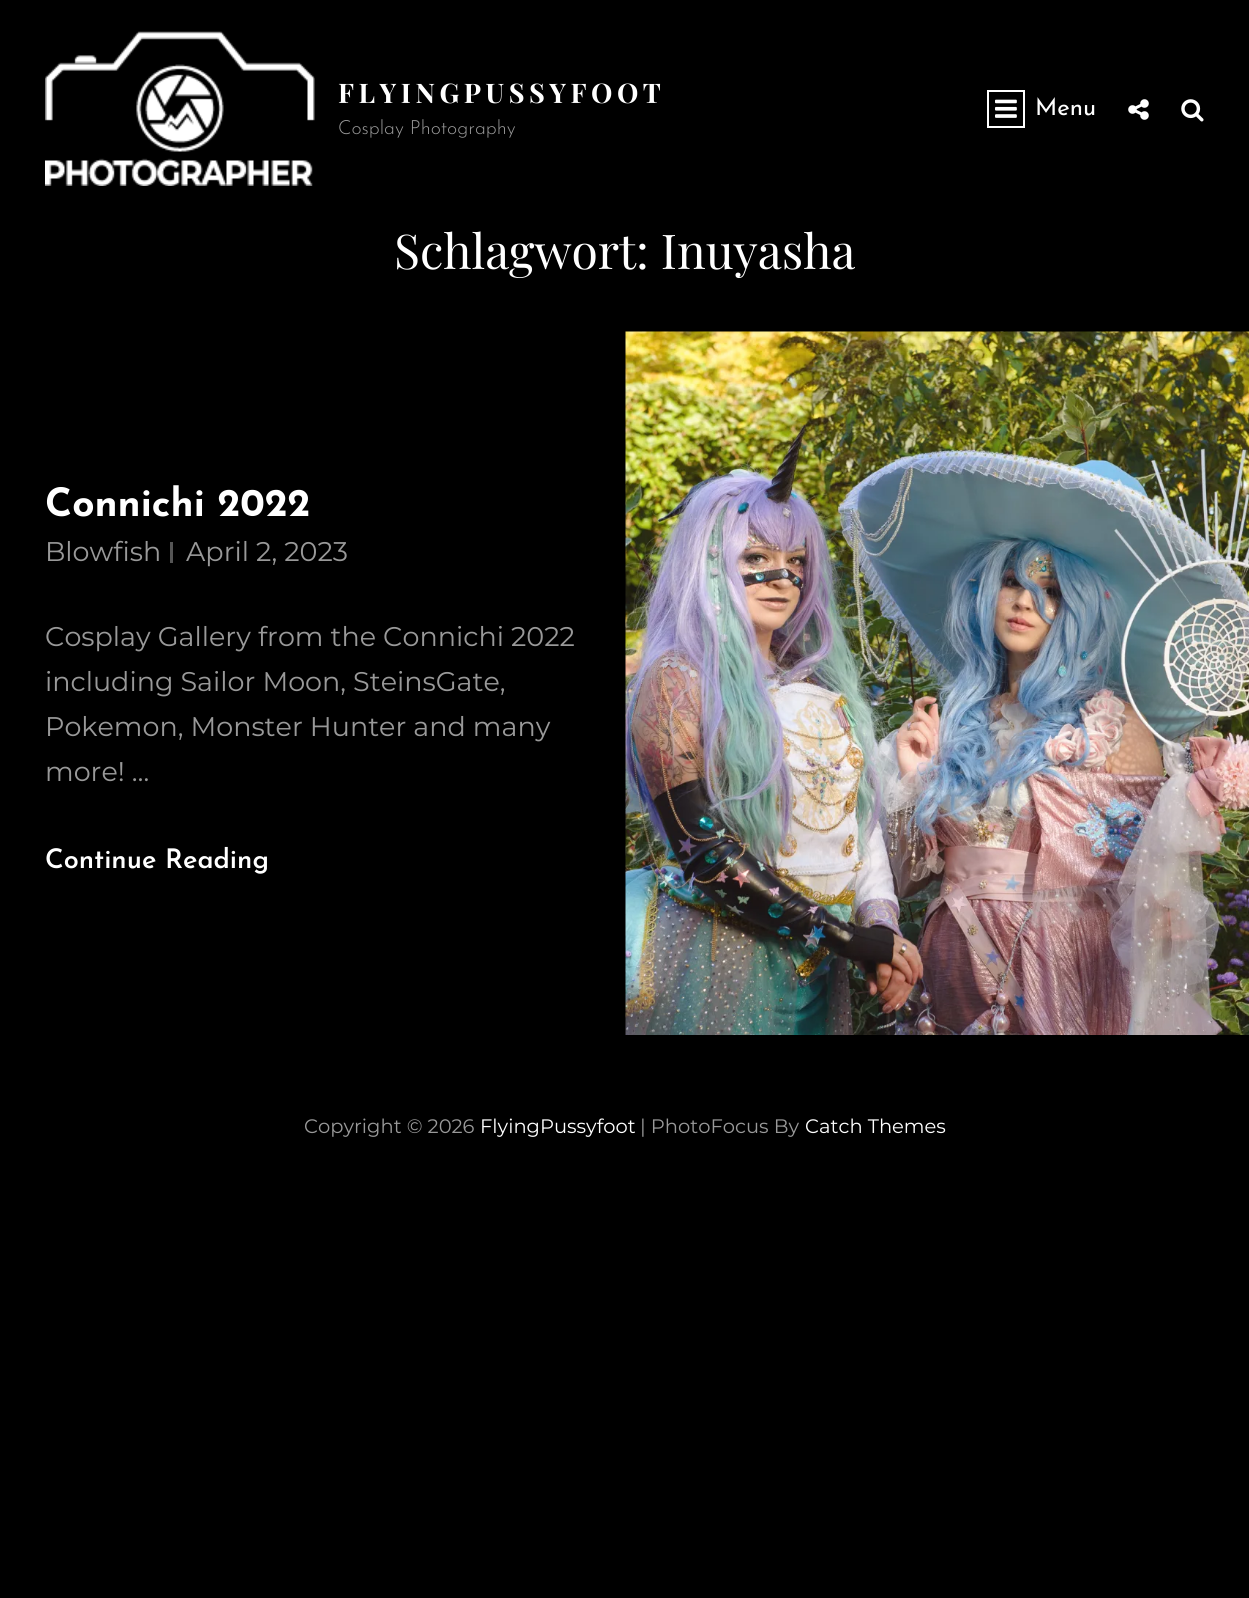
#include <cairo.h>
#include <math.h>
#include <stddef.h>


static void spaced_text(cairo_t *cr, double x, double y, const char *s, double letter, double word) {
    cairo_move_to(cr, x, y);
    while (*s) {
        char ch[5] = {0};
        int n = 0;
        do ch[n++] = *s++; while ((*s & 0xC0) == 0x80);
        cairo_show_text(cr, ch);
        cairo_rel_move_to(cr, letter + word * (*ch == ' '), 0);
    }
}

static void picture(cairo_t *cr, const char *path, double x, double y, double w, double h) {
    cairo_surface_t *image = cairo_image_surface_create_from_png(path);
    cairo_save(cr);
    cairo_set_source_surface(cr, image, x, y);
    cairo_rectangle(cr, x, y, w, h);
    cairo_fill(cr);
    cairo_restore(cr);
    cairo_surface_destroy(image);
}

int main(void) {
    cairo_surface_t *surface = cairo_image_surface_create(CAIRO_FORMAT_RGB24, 1249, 1598);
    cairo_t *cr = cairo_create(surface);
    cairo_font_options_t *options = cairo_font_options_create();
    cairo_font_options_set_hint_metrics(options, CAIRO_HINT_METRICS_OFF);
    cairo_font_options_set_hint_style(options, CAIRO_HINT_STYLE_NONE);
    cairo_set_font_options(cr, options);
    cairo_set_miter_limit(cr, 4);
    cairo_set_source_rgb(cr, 0, 0, 0);
    cairo_paint(cr);
    picture(cr, "img1.png", 45, 31, 270, 155);
    cairo_select_font_face(cr, "Playfair Display", CAIRO_FONT_SLANT_NORMAL, CAIRO_FONT_WEIGHT_BOLD);
    cairo_set_font_size(cr, 27);
    cairo_set_source_rgb(cr, 1, 1, 1);
    spaced_text(cr, 338, 103, "FLYINGPUSSYFOOT", 4.5, 0);
    cairo_select_font_face(cr, "Josefin Sans Light", CAIRO_FONT_SLANT_NORMAL, CAIRO_FONT_WEIGHT_NORMAL);
    cairo_set_font_size(cr, 19.5);
    cairo_set_source_rgb(cr, 0.6, 0.6, 0.6);
    cairo_move_to(cr, 338, 134);
    cairo_show_text(cr, "Cosplay Photography");
    cairo_rectangle(cr, 988, 91, 36, 36);
    cairo_set_source_rgb(cr, 1, 1, 1);
    cairo_stroke(cr);
    picture(cr, "img2.png", 995, 99, 22, 19);
    cairo_select_font_face(cr, "Josefin Sans", CAIRO_FONT_SLANT_NORMAL, CAIRO_FONT_WEIGHT_NORMAL);
    cairo_set_font_size(cr, 24);
    cairo_move_to(cr, 1035, 115);
    cairo_show_text(cr, "Menu");
    picture(cr, "img3.png", 1128, 99, 21, 21);
    picture(cr, "img4.png", 1181, 99, 23, 23);
    cairo_select_font_face(cr, "Playfair Display", CAIRO_FONT_SLANT_NORMAL, CAIRO_FONT_WEIGHT_NORMAL);
    cairo_set_font_size(cr, 48);
    cairo_move_to(cr, 394, 269);
    cairo_show_text(cr, "Schlagwort: Inuyasha");
    cairo_select_font_face(cr, "Josefin Sans", CAIRO_FONT_SLANT_NORMAL, CAIRO_FONT_WEIGHT_BOLD);
    cairo_set_font_size(cr, 39);
    cairo_move_to(cr, 45, 516);
    cairo_show_text(cr, "Connichi 2022");
    cairo_select_font_face(cr, "Montserrat", CAIRO_FONT_SLANT_NORMAL, CAIRO_FONT_WEIGHT_NORMAL);
    cairo_set_font_size(cr, 27);
    cairo_set_source_rgb(cr, 0.6, 0.6, 0.6);
    cairo_move_to(cr, 45, 561);
    cairo_show_text(cr, "Blowfish");
    cairo_set_source_rgb(cr, 0.333, 0.333, 0.333);
    cairo_rectangle(cr, 170, 542, 3, 21);
    cairo_fill(cr);
    cairo_set_source_rgb(cr, 0.6, 0.6, 0.6);
    cairo_move_to(cr, 186, 561);
    cairo_show_text(cr, "April 2, 2023");
    cairo_move_to(cr, 45, 646);
    cairo_show_text(cr, "Cosplay Gallery from the Connichi 2022");
    cairo_move_to(cr, 45, 691);
    cairo_show_text(cr, "including Sailor Moon, SteinsGate,");
    cairo_move_to(cr, 45, 736);
    cairo_show_text(cr, "Pokemon, Monster Hunter and many");
    cairo_move_to(cr, 45, 781);
    cairo_show_text(cr, "more! …");
    cairo_select_font_face(cr, "Josefin Sans SemiBold", CAIRO_FONT_SLANT_NORMAL, CAIRO_FONT_WEIGHT_NORMAL);
    cairo_set_source_rgb(cr, 1, 1, 1);
    cairo_move_to(cr, 45, 868);
    cairo_show_text(cr, "Continue Reading");
    picture(cr, "img5.png", 625, 331, 624, 704);
    cairo_select_font_face(cr, "Montserrat", CAIRO_FONT_SLANT_NORMAL, CAIRO_FONT_WEIGHT_NORMAL);
    cairo_set_font_size(cr, 19.5);
    cairo_set_source_rgb(cr, 0.6, 0.6, 0.6);
    cairo_move_to(cr, 304, 1133);
    cairo_show_text(cr, "Copyright © 2026");
    cairo_set_source_rgb(cr, 1, 1, 1);
    cairo_move_to(cr, 480, 1133);
    cairo_show_text(cr, "FlyingPussyfoot");
    cairo_set_source_rgb(cr, 0.6, 0.6, 0.6);
    cairo_move_to(cr, 640, 1133);
    cairo_show_text(cr, "| PhotoFocus By");
    cairo_set_source_rgb(cr, 1, 1, 1);
    cairo_move_to(cr, 805, 1133);
    cairo_show_text(cr, "Catch Themes");
    cairo_surface_write_to_png(surface, "page.png");
    cairo_font_options_destroy(options);
    cairo_destroy(cr);
    cairo_surface_destroy(surface);
    return 0;
}
